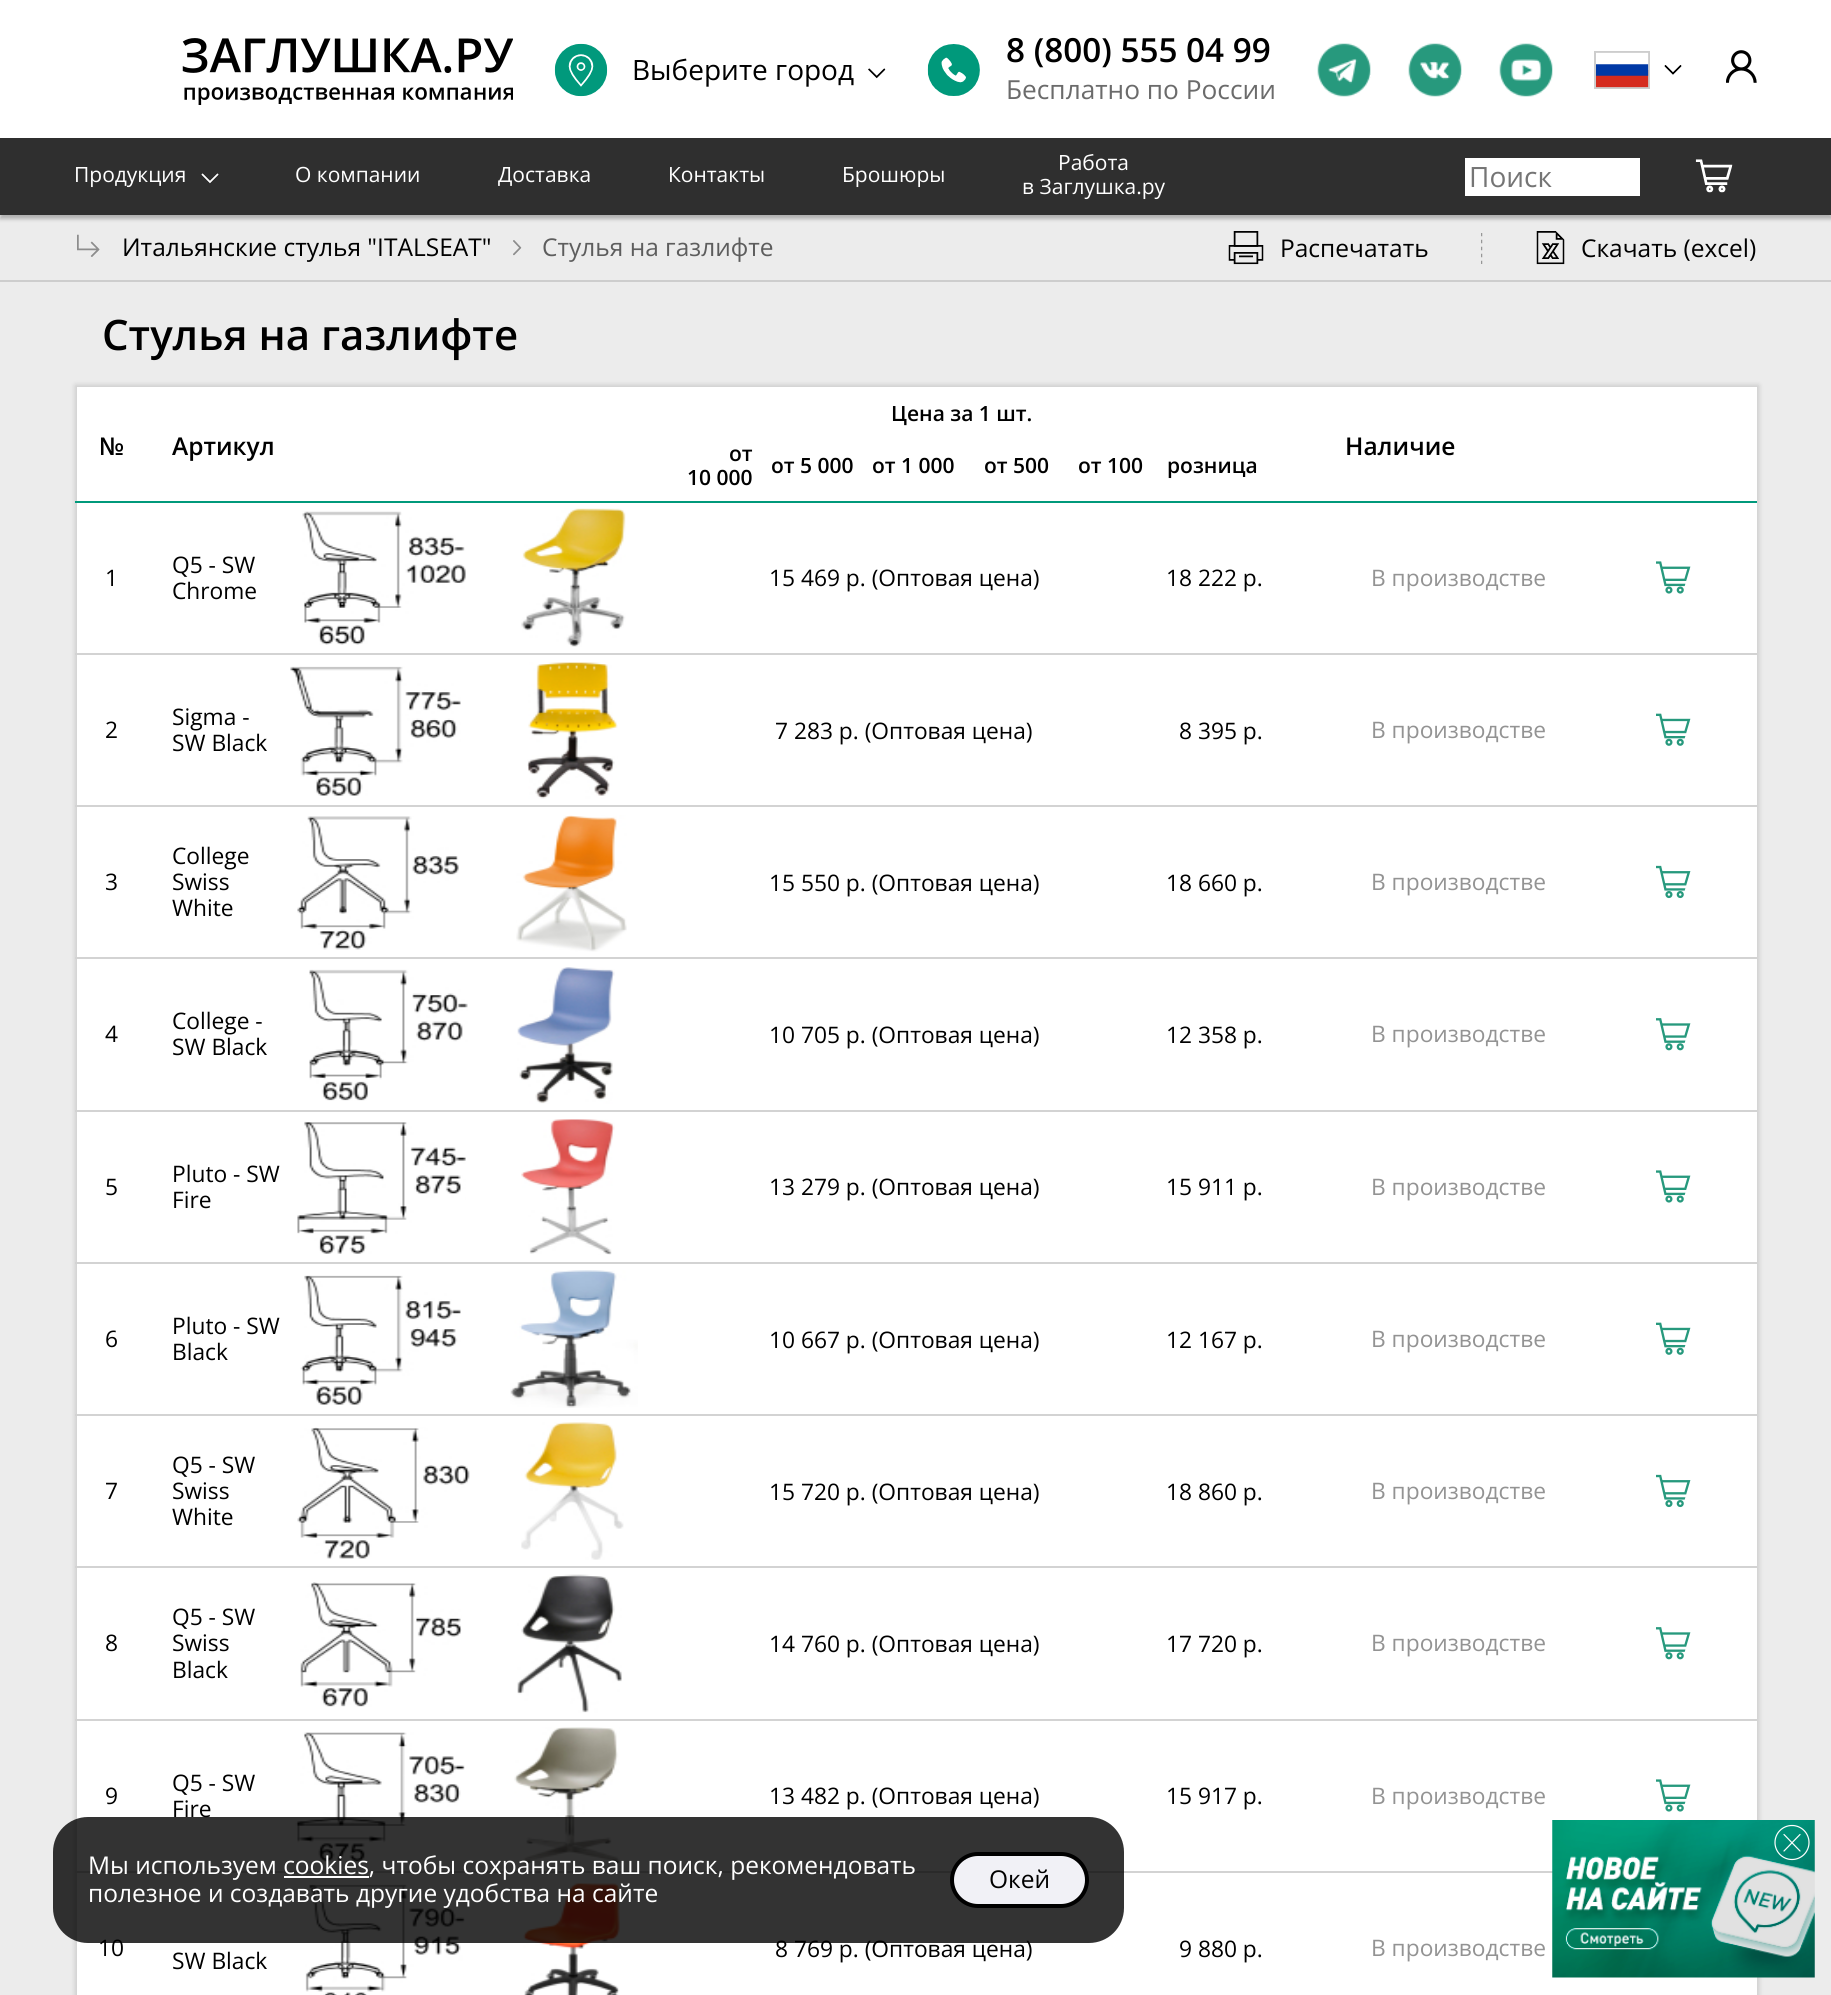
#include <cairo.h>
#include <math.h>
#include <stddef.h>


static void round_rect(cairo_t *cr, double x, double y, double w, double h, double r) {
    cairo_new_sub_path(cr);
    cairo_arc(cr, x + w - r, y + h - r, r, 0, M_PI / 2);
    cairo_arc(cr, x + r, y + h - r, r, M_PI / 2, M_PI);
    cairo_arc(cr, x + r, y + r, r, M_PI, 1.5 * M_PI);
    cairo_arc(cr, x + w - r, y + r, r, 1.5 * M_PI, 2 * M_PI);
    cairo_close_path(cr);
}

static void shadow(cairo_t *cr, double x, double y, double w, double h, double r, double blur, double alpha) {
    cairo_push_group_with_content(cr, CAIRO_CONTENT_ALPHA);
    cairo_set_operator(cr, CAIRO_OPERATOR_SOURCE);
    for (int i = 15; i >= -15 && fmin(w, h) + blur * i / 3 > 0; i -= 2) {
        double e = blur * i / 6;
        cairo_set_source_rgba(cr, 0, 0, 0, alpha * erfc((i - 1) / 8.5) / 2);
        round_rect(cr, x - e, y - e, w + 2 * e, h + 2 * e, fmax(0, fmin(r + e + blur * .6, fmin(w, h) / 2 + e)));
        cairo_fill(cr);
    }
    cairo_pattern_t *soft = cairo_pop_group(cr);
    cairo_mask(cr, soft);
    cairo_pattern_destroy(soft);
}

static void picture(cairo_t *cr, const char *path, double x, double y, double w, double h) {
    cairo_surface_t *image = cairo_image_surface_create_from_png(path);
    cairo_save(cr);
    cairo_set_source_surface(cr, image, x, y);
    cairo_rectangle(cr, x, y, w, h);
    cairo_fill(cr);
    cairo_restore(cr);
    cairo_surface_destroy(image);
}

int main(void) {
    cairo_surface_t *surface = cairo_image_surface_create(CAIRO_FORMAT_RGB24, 1831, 1995);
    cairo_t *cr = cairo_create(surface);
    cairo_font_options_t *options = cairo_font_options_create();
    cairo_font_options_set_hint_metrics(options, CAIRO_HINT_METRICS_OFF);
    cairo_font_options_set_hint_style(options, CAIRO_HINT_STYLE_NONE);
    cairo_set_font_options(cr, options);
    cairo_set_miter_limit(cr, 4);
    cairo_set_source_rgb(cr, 0.922, 0.922, 0.922);
    cairo_paint(cr);
    cairo_set_source_rgb(cr, 1, 1, 1);
    cairo_rectangle(cr, 0, 0, 1831, 138);
    cairo_fill(cr);
    picture(cr, "img1.png", 182, 38, 331, 67);
    picture(cr, "img2.png", 554, 43, 54, 54);
    cairo_select_font_face(cr, "Open Sans", CAIRO_FONT_SLANT_NORMAL, CAIRO_FONT_WEIGHT_NORMAL);
    cairo_set_font_size(cr, 28);
    cairo_set_source_rgb(cr, 0, 0, 0);
    cairo_move_to(cr, 632, 80);
    cairo_show_text(cr, "Выберите город");
    picture(cr, "img3.png", 868, 68, 18, 11);
    picture(cr, "img4.png", 927, 44, 53, 52);
    cairo_select_font_face(cr, "Open Sans SemiBold", CAIRO_FONT_SLANT_NORMAL, CAIRO_FONT_WEIGHT_NORMAL);
    cairo_set_font_size(cr, 33.25);
    cairo_move_to(cr, 1006, 62);
    cairo_show_text(cr, "8 (800) 555 04 99");
    cairo_select_font_face(cr, "Open Sans", CAIRO_FONT_SLANT_NORMAL, CAIRO_FONT_WEIGHT_NORMAL);
    cairo_set_font_size(cr, 26.25);
    cairo_set_source_rgb(cr, 0.42, 0.42, 0.42);
    cairo_move_to(cr, 1006, 99);
    cairo_show_text(cr, "Бесплатно по России");
    picture(cr, "img5.png", 1317, 43, 54, 54);
    cairo_set_source_rgb(cr, 1, 1, 1);
    cairo_rectangle(cr, 1370, 75, 7, 2);
    cairo_fill(cr);
    picture(cr, "img6.png", 1408, 43, 54, 54);
    cairo_rectangle(cr, 1461, 75, 7, 2);
    cairo_fill(cr);
    picture(cr, "img7.png", 1499, 43, 54, 54);
    cairo_rectangle(cr, 1595, 52, 54, 36);
    cairo_set_source_rgb(cr, 0.804, 0.804, 0.804);
    cairo_stroke(cr);
    picture(cr, "img8.png", 1596, 52, 53, 36);
    picture(cr, "img9.png", 1664, 65, 18, 10);
    picture(cr, "img10.png", 1726, 50, 31, 33);
    cairo_set_source_rgb(cr, 0, 0, 0);
    shadow(cr, 0, 142, 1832, 77, 0, 2, 0.26);
    cairo_set_source_rgb(cr, 0.184, 0.184, 0.184);
    cairo_rectangle(cr, 0, 138, 1831, 77);
    cairo_fill(cr);
    cairo_set_font_size(cr, 21);
    cairo_set_source_rgb(cr, 1, 1, 1);
    cairo_move_to(cr, 74, 182);
    cairo_show_text(cr, "Продукция");
    picture(cr, "img11.png", 201, 173, 18, 11);
    cairo_move_to(cr, 295, 182);
    cairo_show_text(cr, "О компании");
    cairo_move_to(cr, 498, 182);
    cairo_show_text(cr, "Доставка");
    cairo_move_to(cr, 668, 182);
    cairo_show_text(cr, "Контакты");
    cairo_move_to(cr, 842, 182);
    cairo_show_text(cr, "Брошюры");
    cairo_move_to(cr, 1058, 170);
    cairo_show_text(cr, "Работа");
    cairo_move_to(cr, 1022, 194);
    cairo_show_text(cr, "в Заглушка.ру");
    cairo_rectangle(cr, 1465, 158, 175, 38);
    cairo_fill(cr);
    cairo_set_font_size(cr, 28);
    cairo_set_source_rgb(cr, 0.459, 0.459, 0.459);
    cairo_move_to(cr, 1469, 187);
    cairo_show_text(cr, "Поиск");
    picture(cr, "img12.png", 1695, 159, 38, 34);
    cairo_set_source_rgb(cr, 0.804, 0.804, 0.804);
    cairo_rectangle(cr, 0, 280, 1831, 2);
    cairo_fill(cr);
    picture(cr, "img13.png", 77, 234, 23, 23);
    cairo_set_font_size(cr, 24.5);
    cairo_set_source_rgb(cr, 0, 0, 0);
    cairo_move_to(cr, 122, 256);
    cairo_show_text(cr, "Итальянские стулья \"ITALSEAT\"");
    picture(cr, "img14.png", 513, 240, 9, 16);
    cairo_set_source_rgb(cr, 0.365, 0.365, 0.365);
    cairo_move_to(cr, 542, 256);
    cairo_show_text(cr, "Стулья на газлифте");
    picture(cr, "img15.png", 1228, 231, 36, 34);
    cairo_set_source_rgb(cr, 0, 0, 0);
    cairo_move_to(cr, 1280, 257);
    cairo_show_text(cr, "Распечатать");
    picture(cr, "img16.png", 1481, 233, 2, 31);
    picture(cr, "img17.png", 1536, 231, 29, 34);
    cairo_move_to(cr, 1581, 257);
    cairo_show_text(cr, "Скачать (excel)");
    cairo_select_font_face(cr, "Open Sans SemiBold", CAIRO_FONT_SLANT_NORMAL, CAIRO_FONT_WEIGHT_NORMAL);
    cairo_set_font_size(cr, 42);
    cairo_move_to(cr, 102, 350);
    cairo_show_text(cr, "Стулья на газлифте");
    cairo_set_source_rgb(cr, 0, 0, 0);
    shadow(cr, 75, 385, 1684, 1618, 0, 2.5, 0.14);
    cairo_set_source_rgb(cr, 1, 1, 1);
    cairo_rectangle(cr, 77, 387, 1680, 1608);
    cairo_fill(cr);
    cairo_set_font_size(cr, 21);
    cairo_set_source_rgb(cr, 0, 0, 0);
    cairo_move_to(cr, 891, 421);
    cairo_show_text(cr, "Цена за 1 шт.");
    cairo_set_font_size(cr, 24.5);
    cairo_move_to(cr, 99, 455);
    cairo_show_text(cr, "№");
    cairo_move_to(cr, 172, 455);
    cairo_show_text(cr, "Артикул");
    cairo_move_to(cr, 1345, 455);
    cairo_show_text(cr, "Наличие");
    cairo_set_font_size(cr, 21);
    cairo_move_to(cr, 729, 461);
    cairo_show_text(cr, "от");
    cairo_move_to(cr, 687, 485);
    cairo_show_text(cr, "10 000");
    cairo_move_to(cr, 771, 473);
    cairo_show_text(cr, "от 5 000");
    cairo_move_to(cr, 872, 473);
    cairo_show_text(cr, "от 1 000");
    cairo_move_to(cr, 984, 473);
    cairo_show_text(cr, "от 500");
    cairo_move_to(cr, 1078, 473);
    cairo_show_text(cr, "от 100");
    cairo_set_source_rgb(cr, 0, 0.6, 0.482);
    cairo_rectangle(cr, 75, 501, 1682, 2);
    cairo_fill(cr);
    cairo_set_source_rgb(cr, 0, 0, 0);
    cairo_move_to(cr, 1167, 473);
    cairo_show_text(cr, "розница");
    cairo_select_font_face(cr, "Open Sans", CAIRO_FONT_SLANT_NORMAL, CAIRO_FONT_WEIGHT_NORMAL);
    cairo_set_font_size(cr, 22.75);
    cairo_move_to(cr, 105, 586);
    cairo_show_text(cr, "1");
    cairo_move_to(cr, 172, 573);
    cairo_show_text(cr, "Q5 - SW");
    cairo_move_to(cr, 172, 599);
    cairo_show_text(cr, "Chrome");
    picture(cr, "img18.png", 302, 511, 164, 134);
    picture(cr, "img19.png", 521, 508, 105, 139);
    cairo_move_to(cr, 769, 586);
    cairo_show_text(cr, "15 469 р. (Оптовая цена)");
    cairo_move_to(cr, 1166, 586);
    cairo_show_text(cr, "18 222 р.");
    cairo_set_source_rgb(cr, 0.576, 0.576, 0.576);
    cairo_move_to(cr, 1371, 586);
    cairo_show_text(cr, "В производстве");
    picture(cr, "img20.png", 1656, 561, 35, 33);
    cairo_set_source_rgb(cr, 0.827, 0.827, 0.827);
    cairo_rectangle(cr, 75, 653, 1682, 2);
    cairo_fill(cr);
    picture(cr, "img21.png", 1656, 713, 35, 33);
    cairo_set_source_rgb(cr, 0, 0, 0);
    cairo_move_to(cr, 105, 738);
    cairo_show_text(cr, "2");
    cairo_move_to(cr, 172, 725);
    cairo_show_text(cr, "Sigma -");
    cairo_move_to(cr, 172, 751);
    cairo_show_text(cr, "SW Black");
    picture(cr, "img22.png", 290, 666, 171, 130);
    picture(cr, "img23.png", 527, 662, 91, 137);
    cairo_move_to(cr, 775, 739);
    cairo_show_text(cr, "7 283 р. (Оптовая цена)");
    cairo_move_to(cr, 1179, 739);
    cairo_show_text(cr, "8 395 р.");
    cairo_set_source_rgb(cr, 0.576, 0.576, 0.576);
    cairo_move_to(cr, 1371, 738);
    cairo_show_text(cr, "В производстве");
    cairo_set_source_rgb(cr, 0.827, 0.827, 0.827);
    cairo_rectangle(cr, 75, 805, 1682, 2);
    cairo_fill(cr);
    picture(cr, "img24.png", 1656, 865, 35, 34);
    cairo_set_source_rgb(cr, 0, 0, 0);
    cairo_move_to(cr, 105, 890);
    cairo_show_text(cr, "3");
    cairo_move_to(cr, 172, 864);
    cairo_show_text(cr, "College");
    cairo_move_to(cr, 172, 890);
    cairo_show_text(cr, "Swiss");
    cairo_move_to(cr, 172, 916);
    cairo_show_text(cr, "White");
    picture(cr, "img25.png", 297, 816, 162, 134);
    picture(cr, "img26.png", 516, 815, 111, 137);
    cairo_move_to(cr, 769, 891);
    cairo_show_text(cr, "15 550 р. (Оптовая цена)");
    cairo_move_to(cr, 1166, 891);
    cairo_show_text(cr, "18 660 р.");
    cairo_set_source_rgb(cr, 0.576, 0.576, 0.576);
    cairo_move_to(cr, 1371, 890);
    cairo_show_text(cr, "В производстве");
    cairo_set_source_rgb(cr, 0.827, 0.827, 0.827);
    cairo_rectangle(cr, 75, 957, 1682, 2);
    cairo_fill(cr);
    picture(cr, "img27.png", 1656, 1018, 35, 33);
    cairo_set_source_rgb(cr, 0, 0, 0);
    cairo_move_to(cr, 105, 1042);
    cairo_show_text(cr, "4");
    cairo_move_to(cr, 172, 1029);
    cairo_show_text(cr, "College -");
    cairo_move_to(cr, 172, 1055);
    cairo_show_text(cr, "SW Black");
    picture(cr, "img28.png", 309, 969, 159, 132);
    picture(cr, "img29.png", 517, 967, 98, 137);
    cairo_move_to(cr, 769, 1043);
    cairo_show_text(cr, "10 705 р. (Оптовая цена)");
    cairo_move_to(cr, 1166, 1043);
    cairo_show_text(cr, "12 358 р.");
    cairo_set_source_rgb(cr, 0.576, 0.576, 0.576);
    cairo_move_to(cr, 1371, 1042);
    cairo_show_text(cr, "В производстве");
    cairo_set_source_rgb(cr, 0.827, 0.827, 0.827);
    cairo_rectangle(cr, 75, 1110, 1682, 2);
    cairo_fill(cr);
    picture(cr, "img20.png", 1656, 1170, 35, 33);
    cairo_set_source_rgb(cr, 0, 0, 0);
    cairo_move_to(cr, 105, 1195);
    cairo_show_text(cr, "5");
    cairo_move_to(cr, 172, 1182);
    cairo_show_text(cr, "Pluto - SW");
    cairo_move_to(cr, 172, 1208);
    cairo_show_text(cr, "Fire");
    picture(cr, "img30.png", 297, 1121, 169, 133);
    picture(cr, "img31.png", 521, 1119, 94, 136);
    cairo_move_to(cr, 769, 1195);
    cairo_show_text(cr, "13 279 р. (Оптовая цена)");
    cairo_move_to(cr, 1166, 1195);
    cairo_show_text(cr, "15 911 р.");
    cairo_set_source_rgb(cr, 0.576, 0.576, 0.576);
    cairo_move_to(cr, 1371, 1195);
    cairo_show_text(cr, "В производстве");
    cairo_set_source_rgb(cr, 0.827, 0.827, 0.827);
    cairo_rectangle(cr, 75, 1262, 1682, 2);
    cairo_fill(cr);
    picture(cr, "img21.png", 1656, 1322, 35, 33);
    cairo_set_source_rgb(cr, 0, 0, 0);
    cairo_move_to(cr, 105, 1347);
    cairo_show_text(cr, "6");
    cairo_move_to(cr, 172, 1334);
    cairo_show_text(cr, "Pluto - SW");
    cairo_move_to(cr, 172, 1360);
    cairo_show_text(cr, "Black");
    picture(cr, "img32.png", 300, 1275, 161, 130);
    picture(cr, "img33.png", 510, 1270, 128, 138);
    cairo_move_to(cr, 769, 1348);
    cairo_show_text(cr, "10 667 р. (Оптовая цена)");
    cairo_move_to(cr, 1166, 1348);
    cairo_show_text(cr, "12 167 р.");
    cairo_set_source_rgb(cr, 0.576, 0.576, 0.576);
    cairo_move_to(cr, 1371, 1347);
    cairo_show_text(cr, "В производстве");
    cairo_set_source_rgb(cr, 0.827, 0.827, 0.827);
    cairo_rectangle(cr, 75, 1414, 1682, 2);
    cairo_fill(cr);
    picture(cr, "img24.png", 1656, 1474, 35, 34);
    cairo_set_source_rgb(cr, 0, 0, 0);
    cairo_move_to(cr, 105, 1499);
    cairo_show_text(cr, "7");
    cairo_move_to(cr, 172, 1473);
    cairo_show_text(cr, "Q5 - SW");
    cairo_move_to(cr, 172, 1499);
    cairo_show_text(cr, "Swiss");
    cairo_move_to(cr, 172, 1525);
    cairo_show_text(cr, "White");
    picture(cr, "img34.png", 297, 1427, 173, 132);
    picture(cr, "img35.png", 521, 1422, 103, 138);
    cairo_move_to(cr, 769, 1500);
    cairo_show_text(cr, "15 720 р. (Оптовая цена)");
    cairo_move_to(cr, 1166, 1500);
    cairo_show_text(cr, "18 860 р.");
    cairo_set_source_rgb(cr, 0.576, 0.576, 0.576);
    cairo_move_to(cr, 1371, 1499);
    cairo_show_text(cr, "В производстве");
    cairo_set_source_rgb(cr, 0.827, 0.827, 0.827);
    cairo_rectangle(cr, 75, 1566, 1682, 2);
    cairo_fill(cr);
    picture(cr, "img27.png", 1656, 1627, 35, 33);
    cairo_set_source_rgb(cr, 0, 0, 0);
    cairo_move_to(cr, 105, 1651);
    cairo_show_text(cr, "8");
    cairo_move_to(cr, 172, 1625);
    cairo_show_text(cr, "Q5 - SW");
    cairo_move_to(cr, 172, 1651);
    cairo_show_text(cr, "Swiss");
    cairo_move_to(cr, 172, 1678);
    cairo_show_text(cr, "Black");
    picture(cr, "img36.png", 300, 1582, 162, 125);
    picture(cr, "img37.png", 517, 1574, 105, 139);
    cairo_move_to(cr, 769, 1652);
    cairo_show_text(cr, "14 760 р. (Оптовая цена)");
    cairo_move_to(cr, 1166, 1652);
    cairo_show_text(cr, "17 720 р.");
    cairo_set_source_rgb(cr, 0.576, 0.576, 0.576);
    cairo_move_to(cr, 1371, 1651);
    cairo_show_text(cr, "В производстве");
    cairo_set_source_rgb(cr, 0.827, 0.827, 0.827);
    cairo_rectangle(cr, 75, 1719, 1682, 2);
    cairo_fill(cr);
    picture(cr, "img20.png", 1656, 1779, 35, 33);
    cairo_set_source_rgb(cr, 0, 0, 0);
    cairo_move_to(cr, 105, 1804);
    cairo_show_text(cr, "9");
    cairo_move_to(cr, 172, 1791);
    cairo_show_text(cr, "Q5 - SW");
    cairo_move_to(cr, 172, 1817);
    cairo_show_text(cr, "Fire");
    picture(cr, "img38.png", 295, 1732, 170, 130);
    picture(cr, "img39.png", 514, 1727, 106, 138);
    cairo_move_to(cr, 769, 1804);
    cairo_show_text(cr, "13 482 р. (Оптовая цена)");
    cairo_move_to(cr, 1166, 1804);
    cairo_show_text(cr, "15 917 р.");
    cairo_set_source_rgb(cr, 0.576, 0.576, 0.576);
    cairo_move_to(cr, 1371, 1804);
    cairo_show_text(cr, "В производстве");
    cairo_set_source_rgb(cr, 0, 0, 0);
    cairo_move_to(cr, 98, 1956);
    cairo_show_text(cr, "10");
    cairo_move_to(cr, 172, 1969);
    cairo_show_text(cr, "SW Black");
    picture(cr, "img40.png", 305, 1884, 160, 111);
    picture(cr, "img41.png", 523, 1883, 97, 112);
    cairo_move_to(cr, 775, 1957);
    cairo_show_text(cr, "8 769 р. (Оптовая цена)");
    cairo_move_to(cr, 1179, 1957);
    cairo_show_text(cr, "9 880 р.");
    cairo_set_source_rgb(cr, 0.827, 0.827, 0.827);
    cairo_rectangle(cr, 75, 1871, 1478, 2);
    cairo_fill(cr);
    cairo_set_source_rgb(cr, 0.576, 0.576, 0.576);
    cairo_move_to(cr, 1371, 1956);
    cairo_show_text(cr, "В производстве");
    cairo_set_source_rgba(cr, 0, 0, 0, 0.8);
    round_rect(cr, 53, 1817, 1071, 126, 35);
    cairo_fill(cr);
    cairo_set_font_size(cr, 24.5);
    cairo_set_source_rgb(cr, 1, 1, 1);
    cairo_move_to(cr, 88, 1874);
    cairo_show_text(cr, "Мы используем cookies, чтобы сохранять ваш поиск, рекомендовать");
    cairo_rectangle(cr, 284, 1876, 85, 2);
    cairo_fill(cr);
    cairo_move_to(cr, 88, 1902);
    cairo_show_text(cr, "полезное и создавать другие удобства на сайте");
    cairo_set_source_rgb(cr, 0.945, 0.945, 0.961);
    round_rect(cr, 952, 1854, 135, 52, 26);
    cairo_fill_preserve(cr);
    cairo_set_source_rgb(cr, 0, 0, 0);
    cairo_set_line_width(cr, 4);
    cairo_stroke(cr);
    cairo_move_to(cr, 989, 1888);
    cairo_show_text(cr, "Окей");
    picture(cr, "img42.png", 1552, 1820, 263, 158);
    cairo_arc(cr, 1792, 1842.5, 17, 0, 2 * M_PI);
    cairo_set_source_rgb(cr, 1, 1, 1);
    cairo_set_line_width(cr, 1.2);
    cairo_stroke(cr);
    cairo_new_path(cr);
    cairo_move_to(cr, 1784, 1834.5);
    cairo_line_to(cr, 1800, 1851);
    cairo_move_to(cr, 1800, 1834.5);
    cairo_line_to(cr, 1784, 1851);
    cairo_set_line_cap(cr, CAIRO_LINE_CAP_ROUND);
    cairo_stroke(cr);
    cairo_surface_write_to_png(surface, "page.png");
    cairo_font_options_destroy(options);
    cairo_destroy(cr);
    cairo_surface_destroy(surface);
    return 0;
}
